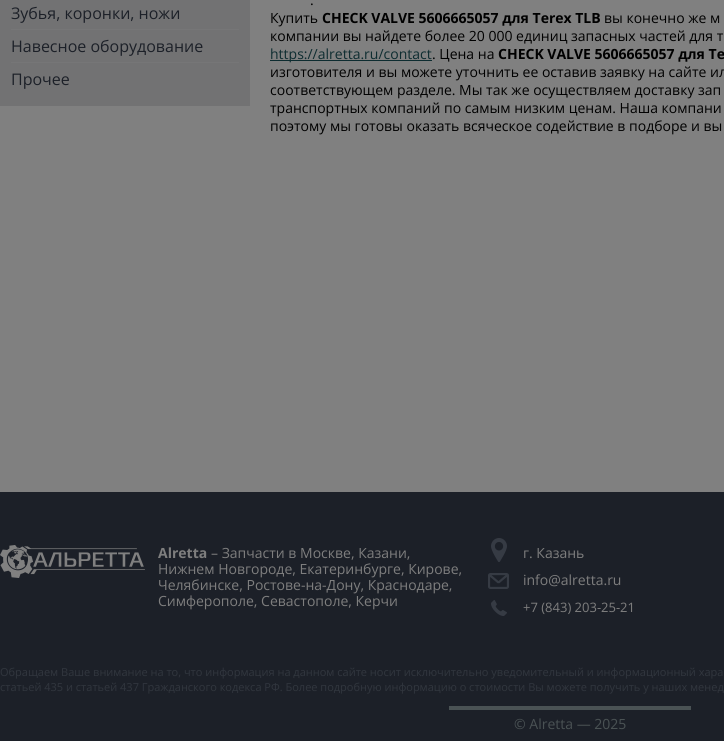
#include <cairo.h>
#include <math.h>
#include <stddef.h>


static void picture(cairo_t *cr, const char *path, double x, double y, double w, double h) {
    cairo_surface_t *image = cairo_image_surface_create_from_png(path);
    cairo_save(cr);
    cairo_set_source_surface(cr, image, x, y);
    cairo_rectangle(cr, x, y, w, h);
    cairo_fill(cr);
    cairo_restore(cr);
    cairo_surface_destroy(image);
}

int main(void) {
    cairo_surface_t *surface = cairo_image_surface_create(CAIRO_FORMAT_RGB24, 724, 741);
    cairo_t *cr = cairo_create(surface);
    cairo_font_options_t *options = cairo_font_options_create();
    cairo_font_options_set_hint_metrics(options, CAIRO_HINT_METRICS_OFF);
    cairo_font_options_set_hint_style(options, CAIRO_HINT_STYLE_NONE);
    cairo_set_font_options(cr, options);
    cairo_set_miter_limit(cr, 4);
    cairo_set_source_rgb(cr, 0.502, 0.502, 0.502);
    cairo_paint(cr);
    cairo_set_source_rgb(cr, 0.447, 0.447, 0.451);
    cairo_rectangle(cr, 0, 0, 250, 106);
    cairo_fill(cr);
    cairo_set_source_rgb(cr, 0.463, 0.463, 0.467);
    cairo_rectangle(cr, 11, 29, 228, 1);
    cairo_fill(cr);
    cairo_select_font_face(cr, "Open Sans", CAIRO_FONT_SLANT_NORMAL, CAIRO_FONT_WEIGHT_NORMAL);
    cairo_set_font_size(cr, 16);
    cairo_set_source_rgb(cr, 0.11, 0.125, 0.157);
    cairo_move_to(cr, 11, 19);
    cairo_show_text(cr, "Зубья, коронки, ножи");
    cairo_set_source_rgb(cr, 0.463, 0.463, 0.467);
    cairo_rectangle(cr, 11, 62, 228, 1);
    cairo_fill(cr);
    cairo_set_source_rgb(cr, 0.11, 0.125, 0.157);
    cairo_move_to(cr, 11, 52);
    cairo_show_text(cr, "Навесное оборудование");
    cairo_move_to(cr, 11, 85);
    cairo_show_text(cr, "Прочее");
    cairo_set_font_size(cr, 14);
    cairo_set_source_rgb(cr, 0, 0, 0);
    cairo_move_to(cr, 310, 5);
    cairo_show_text(cr, ".");
    cairo_move_to(cr, 270, 23);
    cairo_show_text(cr, "Купить");
    cairo_select_font_face(cr, "Open Sans", CAIRO_FONT_SLANT_NORMAL, CAIRO_FONT_WEIGHT_BOLD);
    cairo_move_to(cr, 322, 23);
    cairo_show_text(cr, "CHECK VALVE 5606665057 для Terex TLB");
    cairo_select_font_face(cr, "Open Sans", CAIRO_FONT_SLANT_NORMAL, CAIRO_FONT_WEIGHT_NORMAL);
    cairo_move_to(cr, 604, 23);
    cairo_show_text(cr, "вы конечно же м");
    cairo_move_to(cr, 270, 41);
    cairo_show_text(cr, "компании вы найдете более 20 000 единиц запасных частей для т");
    cairo_set_source_rgb(cr, 0.051, 0.173, 0.188);
    cairo_rectangle(cr, 270, 60, 162, 1);
    cairo_fill(cr);
    cairo_move_to(cr, 270, 59);
    cairo_show_text(cr, "https://alretta.ru/contact");
    cairo_set_source_rgb(cr, 0, 0, 0);
    cairo_move_to(cr, 432, 59);
    cairo_show_text(cr, ". Цена на");
    cairo_select_font_face(cr, "Open Sans", CAIRO_FONT_SLANT_NORMAL, CAIRO_FONT_WEIGHT_BOLD);
    cairo_move_to(cr, 498, 59);
    cairo_show_text(cr, "CHECK VALVE 5606665057 для Te");
    cairo_select_font_face(cr, "Open Sans", CAIRO_FONT_SLANT_NORMAL, CAIRO_FONT_WEIGHT_NORMAL);
    cairo_move_to(cr, 270, 77);
    cairo_show_text(cr, "изготовителя и вы можете уточнить ее оставив заявку на сайте ил");
    cairo_move_to(cr, 270, 95);
    cairo_show_text(cr, "соответствующем разделе. Мы так же осуществляем доставку зап");
    cairo_move_to(cr, 270, 113);
    cairo_show_text(cr, "транспортных компаний по самым низким ценам. Наша компани");
    cairo_move_to(cr, 270, 131);
    cairo_show_text(cr, "поэтому мы готовы оказать всяческое содействие в подборе и вы");
    cairo_set_source_rgb(cr, 0.11, 0.125, 0.157);
    cairo_rectangle(cr, 0, 492, 724, 249);
    cairo_fill(cr);
    picture(cr, "img1.png", 0, 545, 145, 33);
    cairo_select_font_face(cr, "Open Sans", CAIRO_FONT_SLANT_NORMAL, CAIRO_FONT_WEIGHT_BOLD);
    cairo_set_source_rgb(cr, 0.494, 0.494, 0.494);
    cairo_move_to(cr, 158, 558);
    cairo_show_text(cr, "Alretta");
    cairo_select_font_face(cr, "Open Sans", CAIRO_FONT_SLANT_NORMAL, CAIRO_FONT_WEIGHT_NORMAL);
    cairo_move_to(cr, 211, 558);
    cairo_show_text(cr, "– Запчасти в Москве, Казани,");
    cairo_move_to(cr, 158, 574);
    cairo_show_text(cr, "Нижнем Новгороде, Екатеринбурге, Кирове,");
    cairo_move_to(cr, 158, 590);
    cairo_show_text(cr, "Челябинске, Ростове-на-Дону, Краснодаре,");
    cairo_move_to(cr, 158, 606);
    cairo_show_text(cr, "Симферополе, Севастополе, Керчи");
    picture(cr, "img2.png", 491, 538, 16, 24);
    cairo_move_to(cr, 523, 558);
    cairo_show_text(cr, "г. Казань");
    picture(cr, "img3.png", 488, 573, 21, 16);
    cairo_move_to(cr, 523, 585);
    cairo_show_text(cr, "info@alretta.ru");
    picture(cr, "img4.png", 491, 600, 16, 16);
    cairo_set_font_size(cr, 13);
    cairo_move_to(cr, 523, 612);
    cairo_show_text(cr, "+7 (843) 203-25-21");
    cairo_set_font_size(cr, 11);
    cairo_set_source_rgb(cr, 0.192, 0.212, 0.243);
    cairo_move_to(cr, 0, 676);
    cairo_show_text(cr, "Обращаем Ваше внимание на то, что информация на данном сайте носит исключительно уведомительный и информационный хара");
    cairo_move_to(cr, 0, 691);
    cairo_show_text(cr, "статьей 435 и статьей 437 Гражданского кодекса РФ. Более подробную информацию о стоимости Вы можете получить у наших менед");
    cairo_set_source_rgb(cr, 0.29, 0.322, 0.329);
    cairo_rectangle(cr, 449, 706, 242, 4);
    cairo_fill(cr);
    cairo_set_font_size(cr, 14);
    cairo_move_to(cr, 514, 729);
    cairo_show_text(cr, "© Alretta — 2025");
    cairo_surface_write_to_png(surface, "page.png");
    cairo_font_options_destroy(options);
    cairo_destroy(cr);
    cairo_surface_destroy(surface);
    return 0;
}
